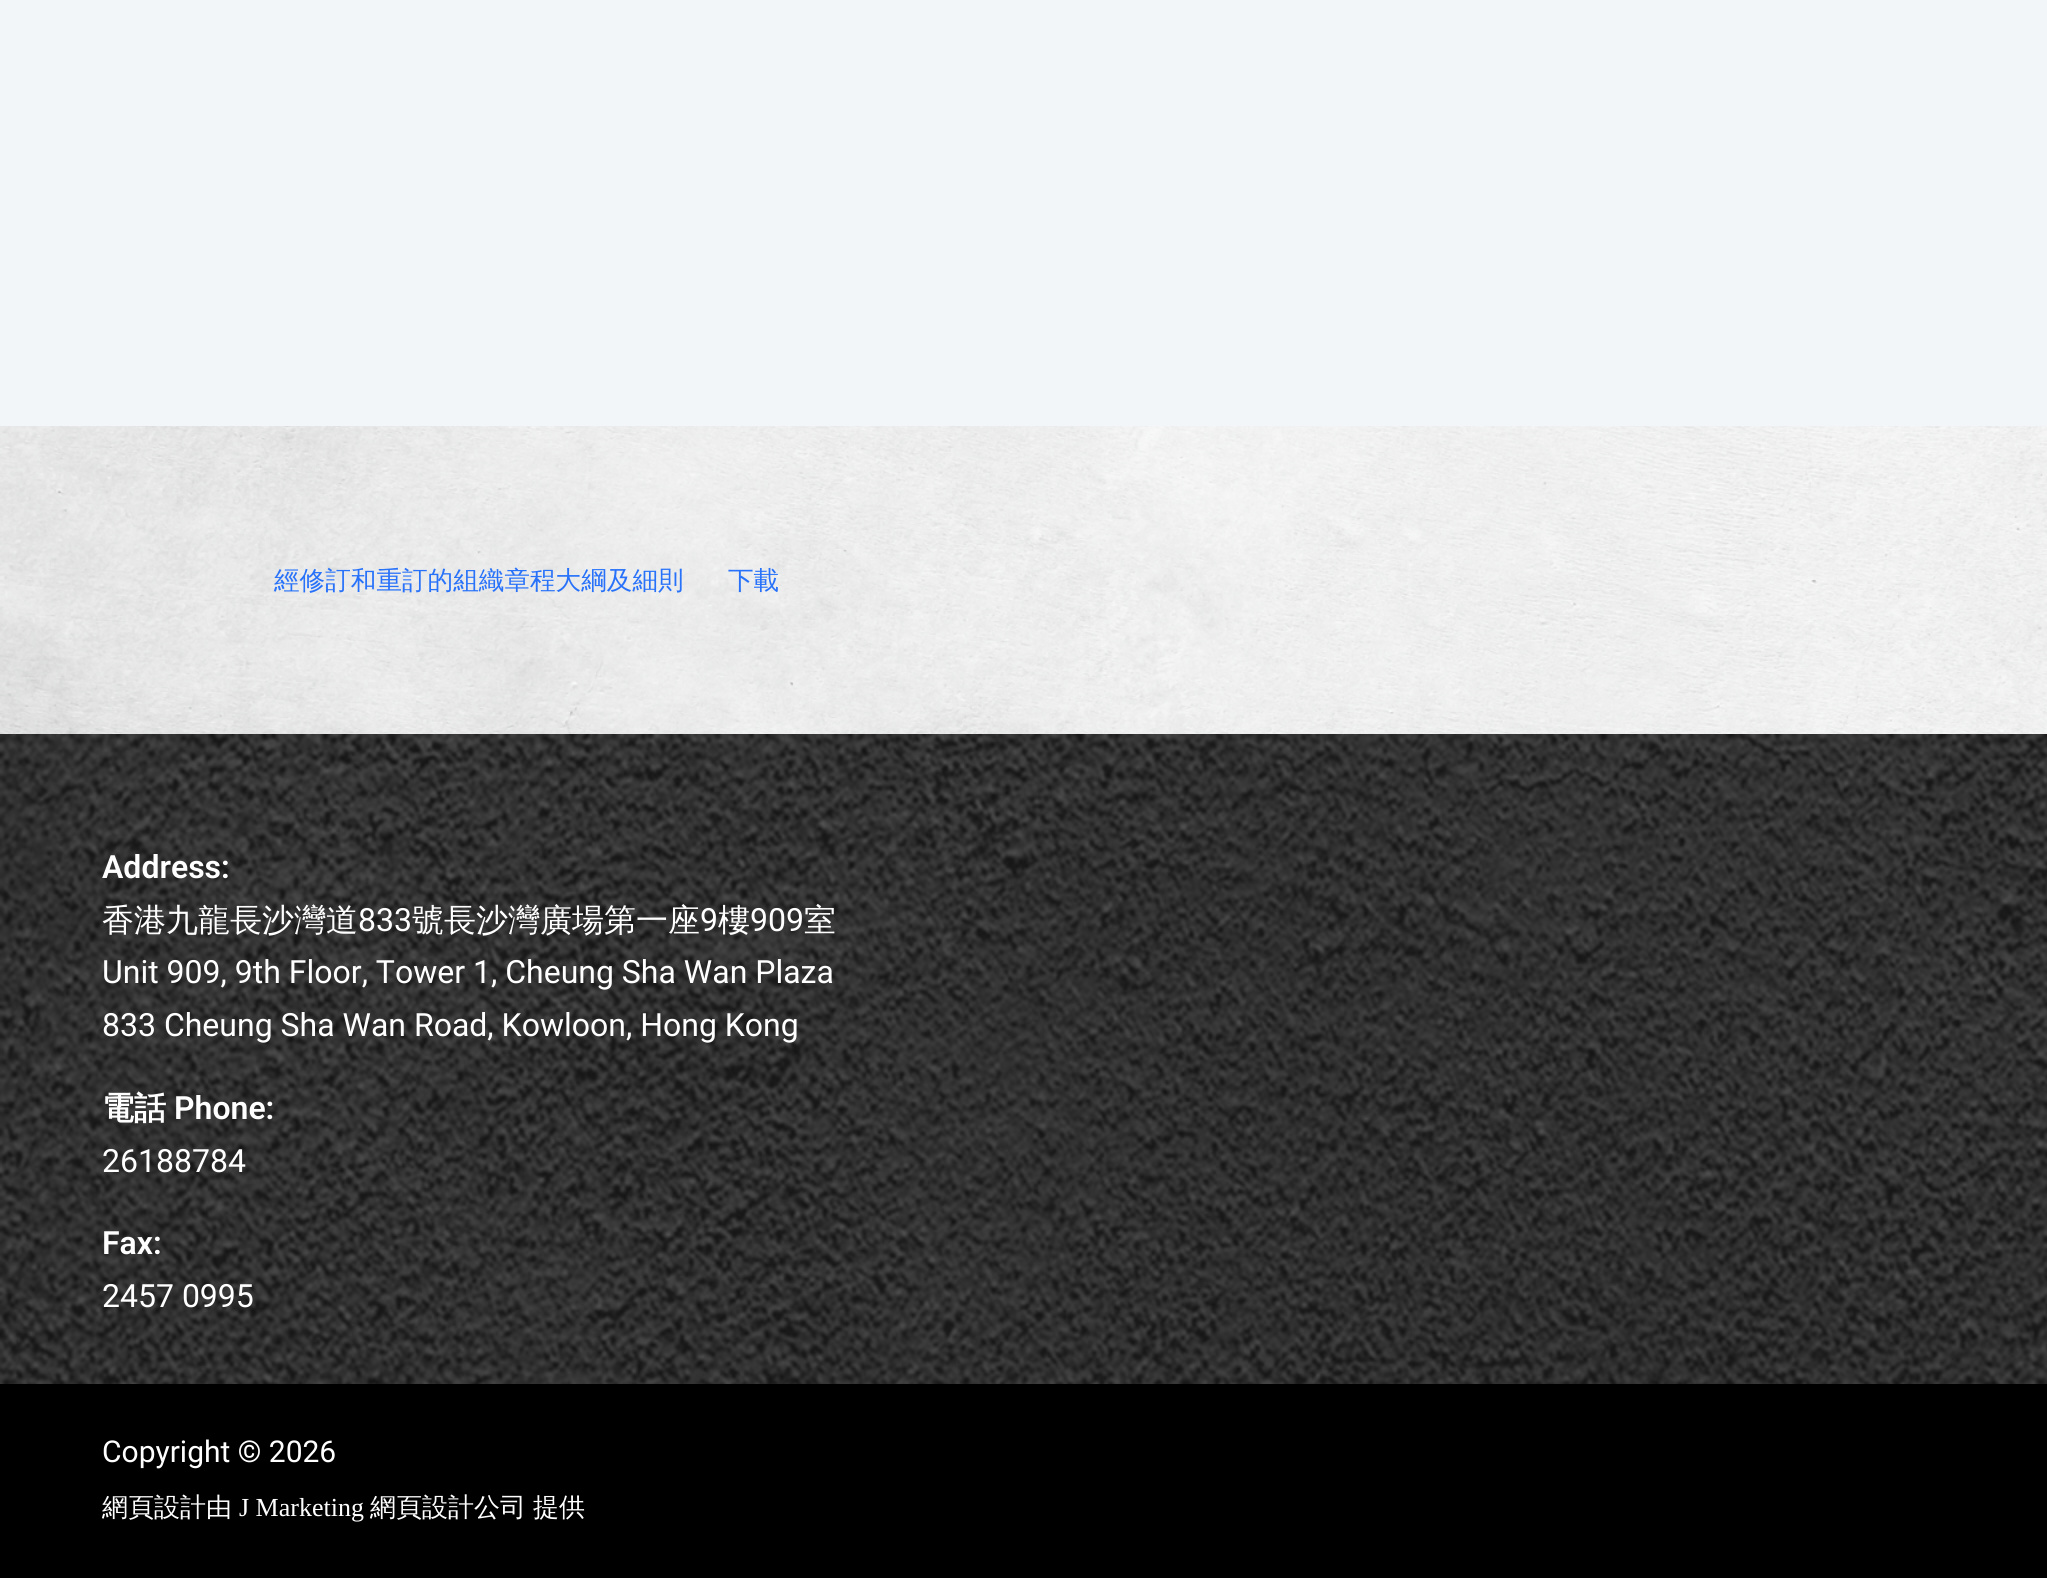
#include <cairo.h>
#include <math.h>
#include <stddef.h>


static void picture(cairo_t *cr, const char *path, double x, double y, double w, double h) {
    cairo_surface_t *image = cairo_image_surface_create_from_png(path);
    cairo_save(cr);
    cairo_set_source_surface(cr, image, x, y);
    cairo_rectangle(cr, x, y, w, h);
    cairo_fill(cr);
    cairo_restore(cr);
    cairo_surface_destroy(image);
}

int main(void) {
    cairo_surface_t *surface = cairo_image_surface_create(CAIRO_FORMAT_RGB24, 2047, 1578);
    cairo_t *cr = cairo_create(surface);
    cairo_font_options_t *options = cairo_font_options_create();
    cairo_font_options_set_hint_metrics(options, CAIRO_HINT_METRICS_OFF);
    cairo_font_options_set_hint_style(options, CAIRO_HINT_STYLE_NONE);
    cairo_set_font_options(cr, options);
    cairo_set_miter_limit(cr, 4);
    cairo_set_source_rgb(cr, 1, 1, 1);
    cairo_paint(cr);
    picture(cr, "img1.png", 0, 426, 2047, 308);
    cairo_set_source_rgb(cr, 0.949, 0.961, 0.969);
    cairo_rectangle(cr, 0, 0, 2047, 426);
    cairo_fill(cr);
    cairo_select_font_face(cr, "WenQuanYi Zen Hei Medium", CAIRO_FONT_SLANT_NORMAL, CAIRO_FONT_WEIGHT_NORMAL);
    cairo_set_font_size(cr, 25.6);
    cairo_set_source_rgb(cr, 0.157, 0.447, 0.98);
    cairo_move_to(cr, 274, 589);
    cairo_show_text(cr, "經修訂和重訂的組織章程大綱及細則");
    cairo_move_to(cr, 728, 589);
    cairo_show_text(cr, "下載");
    picture(cr, "img2.png", 0, 734, 2047, 650);
    cairo_select_font_face(cr, "Roboto SemiBold", CAIRO_FONT_SLANT_NORMAL, CAIRO_FONT_WEIGHT_NORMAL);
    cairo_set_font_size(cr, 32);
    cairo_set_source_rgb(cr, 1, 1, 1);
    cairo_move_to(cr, 102, 878);
    cairo_show_text(cr, "Address:");
    cairo_select_font_face(cr, "WenQuanYi Zen Hei Medium", CAIRO_FONT_SLANT_NORMAL, CAIRO_FONT_WEIGHT_NORMAL);
    cairo_move_to(cr, 102, 931);
    cairo_show_text(cr, "香港九龍長沙灣道");
    cairo_select_font_face(cr, "Roboto", CAIRO_FONT_SLANT_NORMAL, CAIRO_FONT_WEIGHT_NORMAL);
    cairo_move_to(cr, 358, 931);
    cairo_show_text(cr, "833");
    cairo_select_font_face(cr, "WenQuanYi Zen Hei Medium", CAIRO_FONT_SLANT_NORMAL, CAIRO_FONT_WEIGHT_NORMAL);
    cairo_move_to(cr, 412, 931);
    cairo_show_text(cr, "號長沙灣廣場第一座");
    cairo_select_font_face(cr, "Roboto", CAIRO_FONT_SLANT_NORMAL, CAIRO_FONT_WEIGHT_NORMAL);
    cairo_move_to(cr, 700, 931);
    cairo_show_text(cr, "9");
    cairo_select_font_face(cr, "WenQuanYi Zen Hei Medium", CAIRO_FONT_SLANT_NORMAL, CAIRO_FONT_WEIGHT_NORMAL);
    cairo_move_to(cr, 718, 931);
    cairo_show_text(cr, "樓");
    cairo_select_font_face(cr, "Roboto", CAIRO_FONT_SLANT_NORMAL, CAIRO_FONT_WEIGHT_NORMAL);
    cairo_move_to(cr, 750, 931);
    cairo_show_text(cr, "909");
    cairo_select_font_face(cr, "WenQuanYi Zen Hei Medium", CAIRO_FONT_SLANT_NORMAL, CAIRO_FONT_WEIGHT_NORMAL);
    cairo_move_to(cr, 804, 931);
    cairo_show_text(cr, "室");
    cairo_select_font_face(cr, "Roboto", CAIRO_FONT_SLANT_NORMAL, CAIRO_FONT_WEIGHT_NORMAL);
    cairo_move_to(cr, 102, 983);
    cairo_show_text(cr, "Unit 909, 9th Floor, Tower 1, Cheung Sha Wan Plaza");
    cairo_move_to(cr, 102, 1036);
    cairo_show_text(cr, "833 Cheung Sha Wan Road, Kowloon, Hong Kong");
    cairo_select_font_face(cr, "WenQuanYi Zen Hei", CAIRO_FONT_SLANT_NORMAL, CAIRO_FONT_WEIGHT_BOLD);
    cairo_move_to(cr, 102, 1119);
    cairo_show_text(cr, "電話");
    cairo_select_font_face(cr, "Roboto SemiBold", CAIRO_FONT_SLANT_NORMAL, CAIRO_FONT_WEIGHT_NORMAL);
    cairo_move_to(cr, 174, 1119);
    cairo_show_text(cr, "Phone:");
    cairo_select_font_face(cr, "Roboto", CAIRO_FONT_SLANT_NORMAL, CAIRO_FONT_WEIGHT_NORMAL);
    cairo_move_to(cr, 102, 1172);
    cairo_show_text(cr, "26188784");
    cairo_select_font_face(cr, "Roboto SemiBold", CAIRO_FONT_SLANT_NORMAL, CAIRO_FONT_WEIGHT_NORMAL);
    cairo_move_to(cr, 102, 1254);
    cairo_show_text(cr, "Fax:");
    cairo_select_font_face(cr, "Roboto", CAIRO_FONT_SLANT_NORMAL, CAIRO_FONT_WEIGHT_NORMAL);
    cairo_move_to(cr, 102, 1307);
    cairo_show_text(cr, "2457 0995");
    cairo_set_source_rgb(cr, 0, 0, 0);
    cairo_rectangle(cr, 0, 1384, 2047, 194);
    cairo_fill(cr);
    cairo_set_font_size(cr, 30);
    cairo_set_source_rgb(cr, 1, 1, 1);
    cairo_move_to(cr, 102, 1462);
    cairo_show_text(cr, "Copyright © 2026");
    cairo_select_font_face(cr, "WenQuanYi Zen Hei Medium", CAIRO_FONT_SLANT_NORMAL, CAIRO_FONT_WEIGHT_NORMAL);
    cairo_set_font_size(cr, 26);
    cairo_move_to(cr, 102, 1516);
    cairo_show_text(cr, "網頁設計由");
    cairo_select_font_face(cr, "Liberation Serif", CAIRO_FONT_SLANT_NORMAL, CAIRO_FONT_WEIGHT_NORMAL);
    cairo_move_to(cr, 239, 1516);
    cairo_show_text(cr, "J Marketing");
    cairo_select_font_face(cr, "WenQuanYi Zen Hei Medium", CAIRO_FONT_SLANT_NORMAL, CAIRO_FONT_WEIGHT_NORMAL);
    cairo_move_to(cr, 370, 1516);
    cairo_show_text(cr, "網頁設計公司");
    cairo_move_to(cr, 533, 1516);
    cairo_show_text(cr, "提供");
    cairo_surface_write_to_png(surface, "page.png");
    cairo_font_options_destroy(options);
    cairo_destroy(cr);
    cairo_surface_destroy(surface);
    return 0;
}
